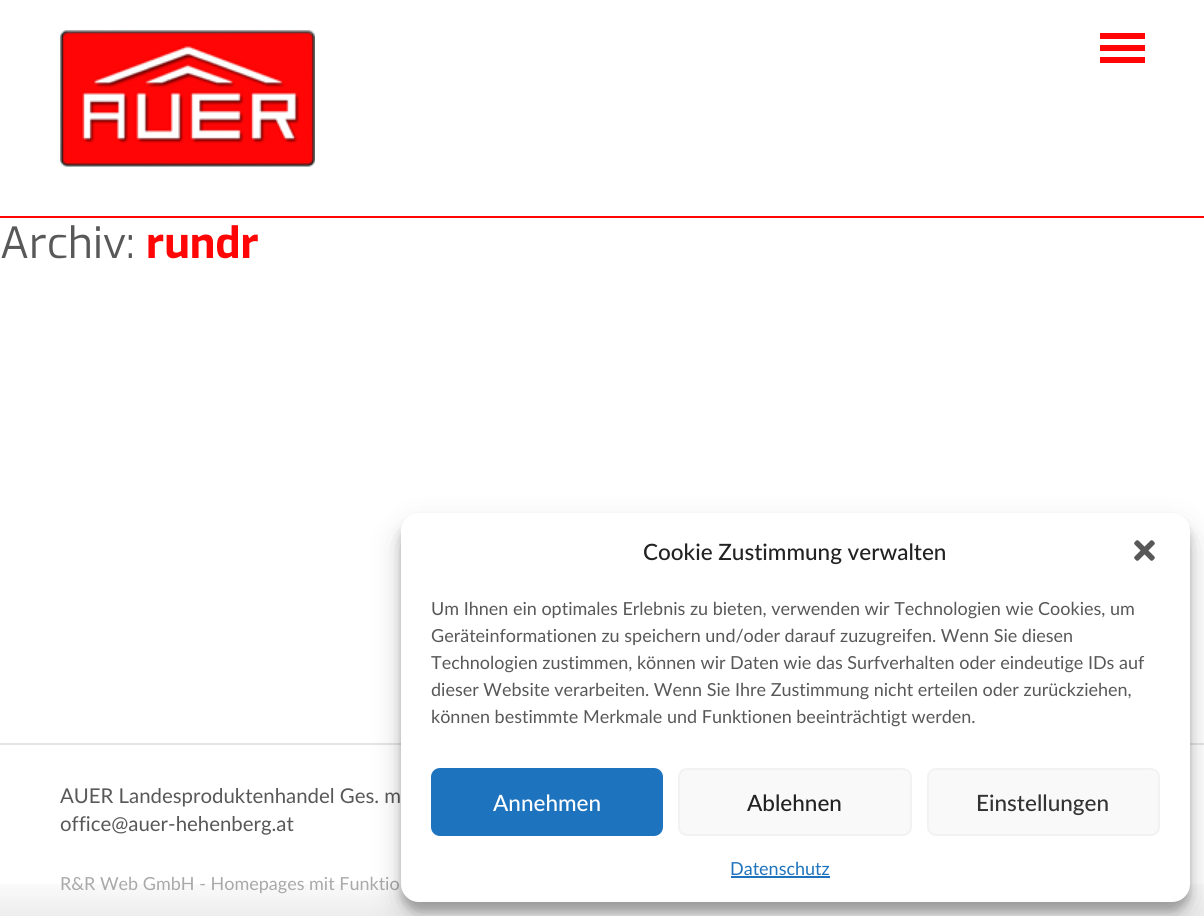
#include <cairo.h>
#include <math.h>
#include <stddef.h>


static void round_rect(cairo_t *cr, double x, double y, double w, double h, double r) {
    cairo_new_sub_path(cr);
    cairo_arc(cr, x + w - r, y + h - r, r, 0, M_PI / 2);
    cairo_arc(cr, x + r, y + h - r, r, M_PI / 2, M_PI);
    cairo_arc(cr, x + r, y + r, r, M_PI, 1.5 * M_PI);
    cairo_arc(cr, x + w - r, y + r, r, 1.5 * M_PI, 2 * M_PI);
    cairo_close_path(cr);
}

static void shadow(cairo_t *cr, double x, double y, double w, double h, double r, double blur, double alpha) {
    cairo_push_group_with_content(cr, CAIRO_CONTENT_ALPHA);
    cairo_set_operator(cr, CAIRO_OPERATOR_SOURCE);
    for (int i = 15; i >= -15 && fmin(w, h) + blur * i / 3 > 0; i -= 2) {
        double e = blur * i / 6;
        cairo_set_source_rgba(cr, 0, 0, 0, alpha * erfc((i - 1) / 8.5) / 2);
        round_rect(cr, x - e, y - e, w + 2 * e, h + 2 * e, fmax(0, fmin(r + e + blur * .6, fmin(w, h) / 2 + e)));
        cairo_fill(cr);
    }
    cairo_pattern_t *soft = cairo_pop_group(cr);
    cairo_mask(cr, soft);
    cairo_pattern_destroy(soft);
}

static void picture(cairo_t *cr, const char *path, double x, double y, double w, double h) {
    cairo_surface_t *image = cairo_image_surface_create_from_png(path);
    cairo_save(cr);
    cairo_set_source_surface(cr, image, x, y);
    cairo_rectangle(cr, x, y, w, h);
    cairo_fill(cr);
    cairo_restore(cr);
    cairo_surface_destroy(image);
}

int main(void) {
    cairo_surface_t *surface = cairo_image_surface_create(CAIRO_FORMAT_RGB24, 1204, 916);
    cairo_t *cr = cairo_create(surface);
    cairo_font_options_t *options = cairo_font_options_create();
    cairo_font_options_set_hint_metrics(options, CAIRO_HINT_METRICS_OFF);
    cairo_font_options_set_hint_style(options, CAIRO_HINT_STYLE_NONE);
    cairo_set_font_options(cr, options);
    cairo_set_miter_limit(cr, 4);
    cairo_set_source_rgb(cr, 1, 1, 1);
    cairo_paint(cr);
    cairo_set_source_rgb(cr, 1, 0.02, 0.024);
    cairo_rectangle(cr, 0, 216, 1204, 2);
    cairo_fill(cr);
    picture(cr, "img1.png", 60, 30, 255, 137);
    cairo_rectangle(cr, 1100, 33, 45, 6);
    cairo_fill(cr);
    cairo_rectangle(cr, 1100, 57, 45, 6);
    cairo_fill(cr);
    cairo_rectangle(cr, 1100, 45, 45, 6);
    cairo_fill(cr);
    cairo_select_font_face(cr, "Exo", CAIRO_FONT_SLANT_NORMAL, CAIRO_FONT_WEIGHT_NORMAL);
    cairo_set_font_size(cr, 43);
    cairo_set_source_rgb(cr, 0.345, 0.345, 0.345);
    cairo_move_to(cr, 0, 258);
    cairo_show_text(cr, "Archiv:");
    cairo_select_font_face(cr, "Exo", CAIRO_FONT_SLANT_NORMAL, CAIRO_FONT_WEIGHT_BOLD);
    cairo_set_source_rgb(cr, 1, 0.02, 0.024);
    cairo_move_to(cr, 146, 258);
    cairo_show_text(cr, "rundr");
    picture(cr, "img2.png", 0, 884, 1204, 32);
    cairo_set_source_rgb(cr, 0.898, 0.898, 0.898);
    cairo_rectangle(cr, 0, 743, 1204, 2);
    cairo_fill(cr);
    cairo_select_font_face(cr, "Lato", CAIRO_FONT_SLANT_NORMAL, CAIRO_FONT_WEIGHT_NORMAL);
    cairo_set_font_size(cr, 20.4);
    cairo_set_source_rgb(cr, 0.345, 0.345, 0.345);
    cairo_move_to(cr, 60, 803);
    cairo_show_text(cr, "AUER Landesproduktenhandel Ges. m");
    cairo_move_to(cr, 60, 831);
    cairo_show_text(cr, "office@auer-hehenberg.at");
    cairo_set_font_size(cr, 18);
    cairo_set_source_rgb(cr, 0.663, 0.663, 0.663);
    cairo_move_to(cr, 60, 890);
    cairo_show_text(cr, "R&R Web GmbH - Homepages mit Funktio");
    cairo_set_source_rgb(cr, 0, 0, 0);
    shadow(cr, 401, 522, 789, 389, 18, 4.5, 0.23);
    shadow(cr, 401, 528, 789, 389, 18, 15, 0.19);
    cairo_set_source_rgb(cr, 1, 1, 1);
    round_rect(cr, 401, 513, 789, 389, 18);
    cairo_fill(cr);
    cairo_select_font_face(cr, "Lato Medium", CAIRO_FONT_SLANT_NORMAL, CAIRO_FONT_WEIGHT_NORMAL);
    cairo_set_font_size(cr, 22.5);
    cairo_set_source_rgb(cr, 0.133, 0.133, 0.133);
    cairo_move_to(cr, 643, 560);
    cairo_show_text(cr, "Cookie Zustimmung verwalten");
    picture(cr, "img3.png", 1134, 540, 21, 21);
    cairo_select_font_face(cr, "Lato", CAIRO_FONT_SLANT_NORMAL, CAIRO_FONT_WEIGHT_NORMAL);
    cairo_set_font_size(cr, 18);
    cairo_set_source_rgb(cr, 0.345, 0.345, 0.345);
    cairo_move_to(cr, 431, 615);
    cairo_show_text(cr, "Um Ihnen ein optimales Erlebnis zu bieten, verwenden wir Technologien wie Cookies, um");
    cairo_move_to(cr, 431, 642);
    cairo_show_text(cr, "Geräteinformationen zu speichern und/oder darauf zuzugreifen. Wenn Sie diesen");
    cairo_move_to(cr, 431, 669);
    cairo_show_text(cr, "Technologien zustimmen, können wir Daten wie das Surfverhalten oder eindeutige IDs auf");
    cairo_move_to(cr, 431, 696);
    cairo_show_text(cr, "dieser Website verarbeiten. Wenn Sie Ihre Zustimmung nicht erteilen oder zurückziehen,");
    cairo_move_to(cr, 431, 723);
    cairo_show_text(cr, "können bestimmte Merkmale und Funktionen beeinträchtigt werden.");
    cairo_set_source_rgb(cr, 0.118, 0.451, 0.745);
    round_rect(cr, 432, 769, 230, 66, 8);
    cairo_fill_preserve(cr);
    cairo_stroke(cr);
    cairo_select_font_face(cr, "Lato Medium", CAIRO_FONT_SLANT_NORMAL, CAIRO_FONT_WEIGHT_NORMAL);
    cairo_set_font_size(cr, 22.5);
    cairo_set_source_rgb(cr, 1, 1, 1);
    cairo_move_to(cr, 493, 811);
    cairo_show_text(cr, "Annehmen");
    cairo_set_source_rgb(cr, 0.976, 0.976, 0.976);
    round_rect(cr, 679, 769, 232, 66, 8);
    cairo_fill_preserve(cr);
    cairo_set_source_rgb(cr, 0.949, 0.949, 0.949);
    cairo_stroke(cr);
    cairo_set_source_rgb(cr, 0.133, 0.133, 0.133);
    cairo_move_to(cr, 747, 811);
    cairo_show_text(cr, "Ablehnen");
    cairo_set_source_rgb(cr, 0.976, 0.976, 0.976);
    round_rect(cr, 928, 769, 231, 66, 8);
    cairo_fill_preserve(cr);
    cairo_set_source_rgb(cr, 0.949, 0.949, 0.949);
    cairo_stroke(cr);
    cairo_set_source_rgb(cr, 0.2, 0.2, 0.2);
    cairo_move_to(cr, 976, 811);
    cairo_show_text(cr, "Einstellungen");
    cairo_select_font_face(cr, "Lato", CAIRO_FONT_SLANT_NORMAL, CAIRO_FONT_WEIGHT_NORMAL);
    cairo_set_font_size(cr, 18);
    cairo_set_source_rgb(cr, 0.118, 0.451, 0.745);
    cairo_move_to(cr, 730, 875);
    cairo_show_text(cr, "Datenschutz");
    cairo_rectangle(cr, 731, 876, 99, 2);
    cairo_fill(cr);
    cairo_surface_write_to_png(surface, "page.png");
    cairo_font_options_destroy(options);
    cairo_destroy(cr);
    cairo_surface_destroy(surface);
    return 0;
}
